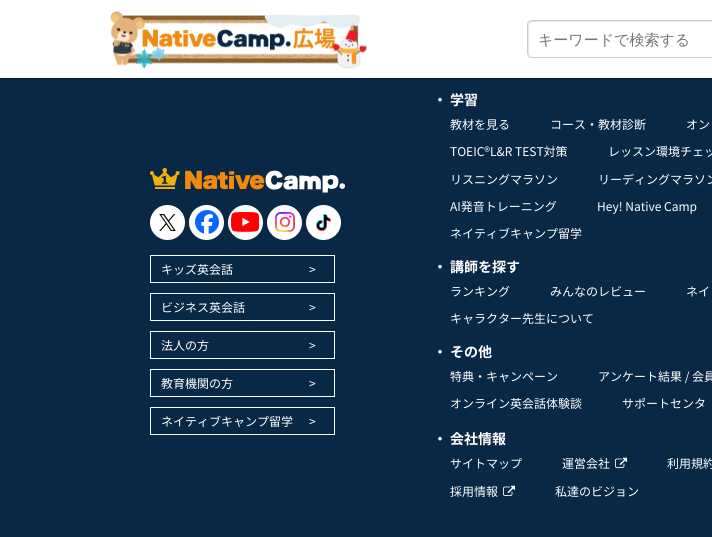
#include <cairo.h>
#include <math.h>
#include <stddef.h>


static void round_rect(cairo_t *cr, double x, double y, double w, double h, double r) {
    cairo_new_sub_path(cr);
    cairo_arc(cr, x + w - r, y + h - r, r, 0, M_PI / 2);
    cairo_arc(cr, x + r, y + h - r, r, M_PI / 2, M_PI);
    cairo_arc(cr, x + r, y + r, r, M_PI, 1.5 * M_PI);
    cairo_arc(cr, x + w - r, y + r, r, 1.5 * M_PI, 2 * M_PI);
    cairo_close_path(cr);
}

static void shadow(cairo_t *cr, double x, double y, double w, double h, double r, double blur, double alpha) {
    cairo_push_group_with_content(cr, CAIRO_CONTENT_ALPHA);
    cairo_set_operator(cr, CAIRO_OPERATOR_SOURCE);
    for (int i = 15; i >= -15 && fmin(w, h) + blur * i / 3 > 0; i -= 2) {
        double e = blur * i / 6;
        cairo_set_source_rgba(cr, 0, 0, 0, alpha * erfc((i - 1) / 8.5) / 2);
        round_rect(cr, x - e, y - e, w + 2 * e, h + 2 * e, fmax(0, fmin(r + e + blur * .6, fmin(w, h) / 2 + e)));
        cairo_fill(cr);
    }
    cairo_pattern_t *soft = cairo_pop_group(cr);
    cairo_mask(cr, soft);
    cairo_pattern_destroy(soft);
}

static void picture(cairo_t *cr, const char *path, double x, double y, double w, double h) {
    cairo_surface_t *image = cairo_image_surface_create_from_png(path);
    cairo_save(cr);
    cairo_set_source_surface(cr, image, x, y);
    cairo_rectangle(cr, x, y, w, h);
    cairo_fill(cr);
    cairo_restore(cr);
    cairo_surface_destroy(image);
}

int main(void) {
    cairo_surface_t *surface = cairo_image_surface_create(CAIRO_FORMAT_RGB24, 712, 537);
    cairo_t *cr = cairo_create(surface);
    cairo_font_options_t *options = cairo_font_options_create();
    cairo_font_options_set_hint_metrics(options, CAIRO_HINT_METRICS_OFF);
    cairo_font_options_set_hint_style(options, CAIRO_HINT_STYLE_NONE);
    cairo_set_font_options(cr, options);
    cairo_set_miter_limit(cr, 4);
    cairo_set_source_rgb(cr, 0.035, 0.157, 0.275);
    cairo_paint(cr);
    cairo_set_source_rgb(cr, 0, 0, 0);
    shadow(cr, 0, 0, 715, 78, 0, 1, 0.5);
    cairo_set_source_rgb(cr, 1, 1, 1);
    cairo_rectangle(cr, 0, 0, 712, 78);
    cairo_fill(cr);
    picture(cr, "img1.png", 110, 11, 257, 58);
    cairo_set_source_rgb(cr, 0.902, 0.902, 0.902);
    cairo_new_path(cr);
    cairo_move_to(cr, 533, 22);
    cairo_line_to(cr, 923, 22);
    cairo_line_to(cr, 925, 23);
    cairo_curve_to(cr, 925, 22, 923, 21, 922, 21);
    cairo_line_to(cr, 532, 21);
    cairo_curve_to(cr, 530, 21, 528, 23, 528, 25);
    cairo_line_to(cr, 528, 53);
    cairo_curve_to(cr, 528, 54, 529, 56, 530, 56);
    cairo_line_to(cr, 529, 54);
    cairo_line_to(cr, 529, 26);
    cairo_curve_to(cr, 529, 24, 531, 22, 533, 22);
    cairo_close_path(cr);
    cairo_fill(cr);
    round_rect(cr, 527.5, 20.5, 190, 37, 4.5);
    cairo_set_source_rgb(cr, 0.8, 0.8, 0.8);
    cairo_set_line_width(cr, 1);
    cairo_stroke(cr);
    cairo_select_font_face(cr, "WenQuanYi Zen Hei Medium", CAIRO_FONT_SLANT_NORMAL, CAIRO_FONT_WEIGHT_NORMAL);
    cairo_set_font_size(cr, 15);
    cairo_set_source_rgb(cr, 0.459, 0.459, 0.459);
    cairo_move_to(cr, 538, 45);
    cairo_show_text(cr, "キーワードで検索する");
    picture(cr, "img2.png", 150, 168, 195, 25);
    cairo_set_source_rgb(cr, 1, 1, 1);
    cairo_arc(cr, 167.5, 222.5, 17.5, 0, 2 * M_PI);
    cairo_fill(cr);
    picture(cr, "img3.png", 159, 214, 17, 17);
    cairo_arc(cr, 206.5, 222.5, 17.5, 0, 2 * M_PI);
    cairo_fill(cr);
    picture(cr, "img4.png", 195, 210, 24, 24);
    cairo_arc(cr, 245.5, 222.5, 17.5, 0, 2 * M_PI);
    cairo_fill(cr);
    picture(cr, "img5.png", 231, 212, 28, 20);
    cairo_arc(cr, 284.5, 222.5, 17.5, 0, 2 * M_PI);
    cairo_fill(cr);
    picture(cr, "img6.png", 275, 212, 20, 20);
    cairo_arc(cr, 323.5, 222.5, 17.5, 0, 2 * M_PI);
    cairo_fill(cr);
    picture(cr, "img7.png", 316, 214, 15, 17);
    cairo_rectangle(cr, 150.5, 255.5, 184, 27);
    cairo_stroke(cr);
    cairo_select_font_face(cr, "Noto Sans JP", CAIRO_FONT_SLANT_NORMAL, CAIRO_FONT_WEIGHT_NORMAL);
    cairo_set_font_size(cr, 12);
    cairo_move_to(cr, 161, 274);
    cairo_show_text(cr, "キッズ英会話");
    cairo_move_to(cr, 309, 274);
    cairo_show_text(cr, ">");
    cairo_rectangle(cr, 150.5, 293.5, 184, 27);
    cairo_stroke(cr);
    cairo_move_to(cr, 161, 312);
    cairo_show_text(cr, "ビジネス英会話");
    cairo_move_to(cr, 309, 312);
    cairo_show_text(cr, ">");
    cairo_rectangle(cr, 150.5, 331.5, 184, 27);
    cairo_stroke(cr);
    cairo_move_to(cr, 161, 350);
    cairo_show_text(cr, "法人の方");
    cairo_move_to(cr, 309, 350);
    cairo_show_text(cr, ">");
    cairo_rectangle(cr, 150.5, 369.5, 184, 27);
    cairo_stroke(cr);
    cairo_move_to(cr, 161, 388);
    cairo_show_text(cr, "教育機関の方");
    cairo_move_to(cr, 309, 388);
    cairo_show_text(cr, ">");
    cairo_rectangle(cr, 150.5, 407.5, 184, 27);
    cairo_stroke(cr);
    cairo_move_to(cr, 161, 426);
    cairo_show_text(cr, "ネイティブキャンプ留学");
    cairo_move_to(cr, 309, 426);
    cairo_show_text(cr, ">");
    cairo_select_font_face(cr, "Noto Sans JP", CAIRO_FONT_SLANT_NORMAL, CAIRO_FONT_WEIGHT_BOLD);
    cairo_set_font_size(cr, 14);
    cairo_move_to(cr, 433, 105);
    cairo_show_text(cr, "・");
    cairo_move_to(cr, 450, 105);
    cairo_show_text(cr, "学習");
    cairo_select_font_face(cr, "Noto Sans JP", CAIRO_FONT_SLANT_NORMAL, CAIRO_FONT_WEIGHT_NORMAL);
    cairo_set_font_size(cr, 12);
    cairo_move_to(cr, 450, 129);
    cairo_show_text(cr, "教材を見る");
    cairo_move_to(cr, 550, 129);
    cairo_show_text(cr, "コース・教材診断");
    cairo_move_to(cr, 686, 129);
    cairo_show_text(cr, "オン");
    cairo_move_to(cr, 450, 156);
    cairo_show_text(cr, "TOEIC®L&R TEST対策");
    cairo_move_to(cr, 608, 156);
    cairo_show_text(cr, "レッスン環境チェッ");
    cairo_move_to(cr, 450, 184);
    cairo_show_text(cr, "リスニングマラソン");
    cairo_move_to(cr, 598, 184);
    cairo_show_text(cr, "リーディングマラソン");
    cairo_move_to(cr, 450, 211);
    cairo_show_text(cr, "AI発音トレーニング");
    cairo_move_to(cr, 597, 211);
    cairo_show_text(cr, "Hey! Native Camp");
    cairo_move_to(cr, 450, 238);
    cairo_show_text(cr, "ネイティブキャンプ留学");
    cairo_select_font_face(cr, "Noto Sans JP", CAIRO_FONT_SLANT_NORMAL, CAIRO_FONT_WEIGHT_BOLD);
    cairo_set_font_size(cr, 14);
    cairo_move_to(cr, 433, 272);
    cairo_show_text(cr, "・");
    cairo_move_to(cr, 450, 272);
    cairo_show_text(cr, "講師を探す");
    cairo_select_font_face(cr, "Noto Sans JP", CAIRO_FONT_SLANT_NORMAL, CAIRO_FONT_WEIGHT_NORMAL);
    cairo_set_font_size(cr, 12);
    cairo_move_to(cr, 450, 296);
    cairo_show_text(cr, "ランキング");
    cairo_move_to(cr, 550, 296);
    cairo_show_text(cr, "みんなのレビュー");
    cairo_move_to(cr, 686, 296);
    cairo_show_text(cr, "ネイ");
    cairo_move_to(cr, 450, 323);
    cairo_show_text(cr, "キャラクター先生について");
    cairo_select_font_face(cr, "Noto Sans JP", CAIRO_FONT_SLANT_NORMAL, CAIRO_FONT_WEIGHT_BOLD);
    cairo_set_font_size(cr, 14);
    cairo_move_to(cr, 433, 357);
    cairo_show_text(cr, "・");
    cairo_move_to(cr, 450, 357);
    cairo_show_text(cr, "その他");
    cairo_select_font_face(cr, "Noto Sans JP", CAIRO_FONT_SLANT_NORMAL, CAIRO_FONT_WEIGHT_NORMAL);
    cairo_set_font_size(cr, 12);
    cairo_move_to(cr, 450, 381);
    cairo_show_text(cr, "特典・キャンペーン");
    cairo_move_to(cr, 598, 381);
    cairo_show_text(cr, "アンケート結果 / 会員");
    cairo_move_to(cr, 450, 408);
    cairo_show_text(cr, "オンライン英会話体験談");
    cairo_move_to(cr, 622, 408);
    cairo_show_text(cr, "サポートセンタ");
    cairo_select_font_face(cr, "Noto Sans JP", CAIRO_FONT_SLANT_NORMAL, CAIRO_FONT_WEIGHT_BOLD);
    cairo_set_font_size(cr, 14);
    cairo_move_to(cr, 433, 444);
    cairo_show_text(cr, "・");
    cairo_move_to(cr, 450, 444);
    cairo_show_text(cr, "会社情報");
    cairo_select_font_face(cr, "Noto Sans JP", CAIRO_FONT_SLANT_NORMAL, CAIRO_FONT_WEIGHT_NORMAL);
    cairo_set_font_size(cr, 12);
    cairo_move_to(cr, 450, 468);
    cairo_show_text(cr, "サイトマップ");
    cairo_move_to(cr, 562, 468);
    cairo_show_text(cr, "運営会社");
    picture(cr, "img8.png", 615, 457, 12, 11);
    cairo_move_to(cr, 667, 468);
    cairo_show_text(cr, "利用規約");
    cairo_move_to(cr, 450, 496);
    cairo_show_text(cr, "採用情報");
    picture(cr, "img8.png", 503, 485, 12, 11);
    cairo_move_to(cr, 555, 496);
    cairo_show_text(cr, "私達のビジョン");
    cairo_surface_write_to_png(surface, "page.png");
    cairo_font_options_destroy(options);
    cairo_destroy(cr);
    cairo_surface_destroy(surface);
    return 0;
}
